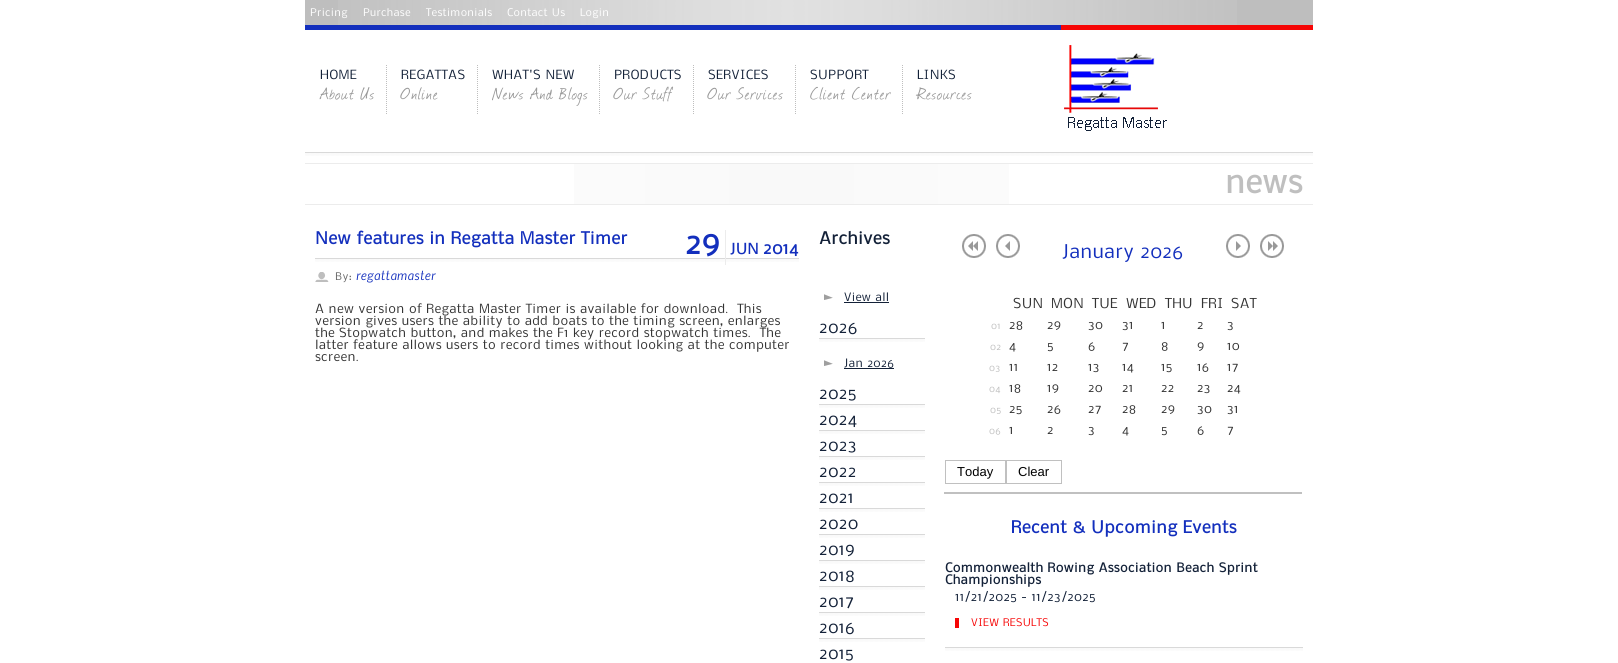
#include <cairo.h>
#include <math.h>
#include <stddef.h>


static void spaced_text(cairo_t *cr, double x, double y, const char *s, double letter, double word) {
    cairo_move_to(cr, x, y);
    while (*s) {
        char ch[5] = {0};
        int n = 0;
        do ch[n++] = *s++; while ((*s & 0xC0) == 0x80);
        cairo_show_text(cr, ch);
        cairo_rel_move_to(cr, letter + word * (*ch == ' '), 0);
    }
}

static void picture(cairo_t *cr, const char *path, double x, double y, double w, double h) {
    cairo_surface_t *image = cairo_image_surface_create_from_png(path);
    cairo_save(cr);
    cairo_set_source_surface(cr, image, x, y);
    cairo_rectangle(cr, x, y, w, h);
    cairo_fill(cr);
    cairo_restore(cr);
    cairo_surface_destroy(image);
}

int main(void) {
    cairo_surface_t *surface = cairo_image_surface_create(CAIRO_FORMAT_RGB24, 1618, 663);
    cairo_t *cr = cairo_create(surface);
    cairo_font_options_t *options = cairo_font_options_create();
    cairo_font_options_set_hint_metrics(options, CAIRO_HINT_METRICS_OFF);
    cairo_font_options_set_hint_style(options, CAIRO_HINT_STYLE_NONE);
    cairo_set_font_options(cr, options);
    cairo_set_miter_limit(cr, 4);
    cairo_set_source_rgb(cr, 1, 1, 1);
    cairo_paint(cr);
    cairo_set_source_rgb(cr, 0.745, 0.745, 0.745);
    cairo_rectangle(cr, 305, 0, 1008, 25);
    cairo_fill(cr);
    picture(cr, "img1.png", 338, 0, 899, 25);
    cairo_set_source_rgb(cr, 0.075, 0.184, 0.741);
    cairo_rectangle(cr, 305, 25, 756, 5);
    cairo_fill(cr);
    cairo_select_font_face(cr, "Nobile", CAIRO_FONT_SLANT_NORMAL, CAIRO_FONT_WEIGHT_NORMAL);
    cairo_set_font_size(cr, 10);
    cairo_set_source_rgb(cr, 1, 1, 1);
    spaced_text(cr, 310, 16, "Pricing", 0.3, 0);
    spaced_text(cr, 363, 16, "Purchase", 0.3, 0);
    spaced_text(cr, 426, 16, "Testimonials", 0.3, 0);
    spaced_text(cr, 507, 16, "Contact Us", 0.3, 1);
    spaced_text(cr, 580, 16, "Login", 0.3, 0);
    cairo_set_source_rgb(cr, 0.961, 0.02, 0.02);
    cairo_rectangle(cr, 1061, 25, 252, 5);
    cairo_fill(cr);
    cairo_new_path(cr);
    cairo_move_to(cr, 386.5, 65);
    cairo_line_to(cr, 386.5, 115);
    cairo_set_source_rgb(cr, 0.745, 0.745, 0.745);
    cairo_set_line_width(cr, 1);
    cairo_set_dash(cr, (double[]){1, 1}, 2, 0);
    cairo_stroke(cr);
    cairo_set_font_size(cr, 12);
    cairo_set_source_rgb(cr, 0.075, 0.129, 0.22);
    spaced_text(cr, 320, 79, "HOME", 0.3, 0);
    cairo_select_font_face(cr, "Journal", CAIRO_FONT_SLANT_NORMAL, CAIRO_FONT_WEIGHT_NORMAL);
    cairo_set_font_size(cr, 20);
    cairo_set_source_rgb(cr, 0.6, 0.6, 0.6);
    spaced_text(cr, 320, 99, "About Us", 1, 0);
    cairo_new_path(cr);
    cairo_move_to(cr, 477.5, 65);
    cairo_line_to(cr, 477.5, 115);
    cairo_set_source_rgb(cr, 0.745, 0.745, 0.745);
    cairo_stroke(cr);
    cairo_select_font_face(cr, "Nobile", CAIRO_FONT_SLANT_NORMAL, CAIRO_FONT_WEIGHT_NORMAL);
    cairo_set_font_size(cr, 12);
    cairo_set_source_rgb(cr, 0.075, 0.129, 0.22);
    spaced_text(cr, 401, 79, "REGATTAS", 0.3, 0);
    cairo_select_font_face(cr, "Journal", CAIRO_FONT_SLANT_NORMAL, CAIRO_FONT_WEIGHT_NORMAL);
    cairo_set_font_size(cr, 20);
    cairo_set_source_rgb(cr, 0.6, 0.6, 0.6);
    spaced_text(cr, 401, 99, "Online", 1, 0);
    cairo_new_path(cr);
    cairo_move_to(cr, 599.5, 65);
    cairo_line_to(cr, 599.5, 115);
    cairo_set_source_rgb(cr, 0.745, 0.745, 0.745);
    cairo_stroke(cr);
    cairo_select_font_face(cr, "Nobile", CAIRO_FONT_SLANT_NORMAL, CAIRO_FONT_WEIGHT_NORMAL);
    cairo_set_font_size(cr, 12);
    cairo_set_source_rgb(cr, 0.075, 0.129, 0.22);
    spaced_text(cr, 492, 79, "WHAT'S NEW", 0.3, 1);
    cairo_select_font_face(cr, "Journal", CAIRO_FONT_SLANT_NORMAL, CAIRO_FONT_WEIGHT_NORMAL);
    cairo_set_font_size(cr, 20);
    cairo_set_source_rgb(cr, 0.6, 0.6, 0.6);
    spaced_text(cr, 492, 99, "News And Blogs", 1, 0);
    cairo_new_path(cr);
    cairo_move_to(cr, 693.5, 65);
    cairo_line_to(cr, 693.5, 115);
    cairo_set_source_rgb(cr, 0.745, 0.745, 0.745);
    cairo_stroke(cr);
    cairo_select_font_face(cr, "Nobile", CAIRO_FONT_SLANT_NORMAL, CAIRO_FONT_WEIGHT_NORMAL);
    cairo_set_font_size(cr, 12);
    cairo_set_source_rgb(cr, 0.075, 0.129, 0.22);
    spaced_text(cr, 614, 79, "PRODUCTS", 0.3, 0);
    cairo_select_font_face(cr, "Journal", CAIRO_FONT_SLANT_NORMAL, CAIRO_FONT_WEIGHT_NORMAL);
    cairo_set_font_size(cr, 20);
    cairo_set_source_rgb(cr, 0.6, 0.6, 0.6);
    spaced_text(cr, 614, 99, "Our Stuff", 1, 0);
    cairo_new_path(cr);
    cairo_move_to(cr, 795.5, 65);
    cairo_line_to(cr, 795.5, 115);
    cairo_set_source_rgb(cr, 0.745, 0.745, 0.745);
    cairo_stroke(cr);
    cairo_select_font_face(cr, "Nobile", CAIRO_FONT_SLANT_NORMAL, CAIRO_FONT_WEIGHT_NORMAL);
    cairo_set_font_size(cr, 12);
    cairo_set_source_rgb(cr, 0.075, 0.129, 0.22);
    spaced_text(cr, 708, 79, "SERVICES", 0.3, 0);
    cairo_select_font_face(cr, "Journal", CAIRO_FONT_SLANT_NORMAL, CAIRO_FONT_WEIGHT_NORMAL);
    cairo_set_font_size(cr, 20);
    cairo_set_source_rgb(cr, 0.6, 0.6, 0.6);
    spaced_text(cr, 708, 99, "Our Services", 1, 0);
    cairo_new_path(cr);
    cairo_move_to(cr, 902.5, 65);
    cairo_line_to(cr, 902.5, 115);
    cairo_set_source_rgb(cr, 0.745, 0.745, 0.745);
    cairo_stroke(cr);
    cairo_select_font_face(cr, "Nobile", CAIRO_FONT_SLANT_NORMAL, CAIRO_FONT_WEIGHT_NORMAL);
    cairo_set_font_size(cr, 12);
    cairo_set_source_rgb(cr, 0.075, 0.129, 0.22);
    spaced_text(cr, 810, 79, "SUPPORT", 0.3, 0);
    cairo_select_font_face(cr, "Journal", CAIRO_FONT_SLANT_NORMAL, CAIRO_FONT_WEIGHT_NORMAL);
    cairo_set_font_size(cr, 20);
    cairo_set_source_rgb(cr, 0.6, 0.6, 0.6);
    spaced_text(cr, 810, 99, "Client Center", 1, 0);
    cairo_select_font_face(cr, "Nobile", CAIRO_FONT_SLANT_NORMAL, CAIRO_FONT_WEIGHT_NORMAL);
    cairo_set_font_size(cr, 12);
    cairo_set_source_rgb(cr, 0.075, 0.129, 0.22);
    spaced_text(cr, 917, 79, "LINKS", 0.3, 0);
    cairo_select_font_face(cr, "Journal", CAIRO_FONT_SLANT_NORMAL, CAIRO_FONT_WEIGHT_NORMAL);
    cairo_set_font_size(cr, 20);
    cairo_set_source_rgb(cr, 0.6, 0.6, 0.6);
    spaced_text(cr, 917, 99, "Resources", 1, 0);
    picture(cr, "img2.png", 1064, 45, 103, 86);
    picture(cr, "img3.png", 305, 153, 1008, 3);
    cairo_set_source_rgb(cr, 0.851, 0.851, 0.851);
    cairo_rectangle(cr, 305, 152, 1008, 1);
    cairo_fill(cr);
    picture(cr, "img4.png", 574, 164, 435, 40);
    cairo_set_source_rgb(cr, 0.922, 0.922, 0.922);
    cairo_rectangle(cr, 305, 163, 1008, 1);
    cairo_fill(cr);
    cairo_rectangle(cr, 305, 204, 1008, 1);
    cairo_fill(cr);
    cairo_select_font_face(cr, "Nobile", CAIRO_FONT_SLANT_NORMAL, CAIRO_FONT_WEIGHT_BOLD);
    cairo_set_font_size(cr, 30);
    cairo_set_source_rgb(cr, 0.749, 0.749, 0.749);
    spaced_text(cr, 1225, 193, "news", 0.3, 0);
    cairo_set_font_size(cr, 16);
    cairo_set_source_rgb(cr, 0.075, 0.184, 0.741);
    spaced_text(cr, 315, 244, "New features in Regatta Master Timer", 0.3, 1);
    cairo_set_font_size(cr, 30);
    spaced_text(cr, 685, 254, "29", 0.3, 0);
    picture(cr, "img5.png", 315, 259, 484, 3);
    cairo_set_source_rgb(cr, 0.851, 0.851, 0.851);
    cairo_rectangle(cr, 315, 258, 484, 1);
    cairo_fill(cr);
    cairo_set_source_rgb(cr, 0.922, 0.922, 0.922);
    cairo_rectangle(cr, 725, 230, 1, 35);
    cairo_fill(cr);
    cairo_set_font_size(cr, 14);
    cairo_set_source_rgb(cr, 0.075, 0.184, 0.741);
    spaced_text(cr, 730, 254, "JUN", 0.3, 0);
    cairo_set_font_size(cr, 16);
    spaced_text(cr, 763, 254, "2014", 0.3, 0);
    picture(cr, "img6.png", 315, 272, 14, 10);
    cairo_select_font_face(cr, "Nobile", CAIRO_FONT_SLANT_NORMAL, CAIRO_FONT_WEIGHT_NORMAL);
    cairo_set_font_size(cr, 10);
    cairo_set_source_rgb(cr, 0.4, 0.4, 0.4);
    spaced_text(cr, 335, 280, "By:", 0.3, 0);
    cairo_select_font_face(cr, "Nobile", CAIRO_FONT_SLANT_ITALIC, CAIRO_FONT_WEIGHT_NORMAL);
    cairo_set_font_size(cr, 12);
    cairo_set_source_rgb(cr, 0.075, 0.184, 0.741);
    spaced_text(cr, 356, 280, "regattamaster", 0.3, 0);
    cairo_select_font_face(cr, "Nobile", CAIRO_FONT_SLANT_NORMAL, CAIRO_FONT_WEIGHT_NORMAL);
    cairo_set_source_rgb(cr, 0.2, 0.2, 0.2);
    spaced_text(cr, 315, 313, "A new version of Regatta Master Timer is available for download.  This", 0.3, 1);
    spaced_text(cr, 315, 325, "version gives users the ability to add boats to the timing screen, enlarges", 0.3, 1);
    spaced_text(cr, 315, 337, "the", 0.3, 0);
    spaced_text(cr, 339, 337, "Stopwatch button, and makes the F1 key record stopwatch times.  The", 0.3, 1);
    spaced_text(cr, 315, 349, "latter", 0.3, 0);
    spaced_text(cr, 353, 349, "feature allows users to record times without looking at the computer", 0.3, 1);
    spaced_text(cr, 315, 361, "screen.", 0.3, 0);
    cairo_select_font_face(cr, "Nobile", CAIRO_FONT_SLANT_NORMAL, CAIRO_FONT_WEIGHT_BOLD);
    cairo_set_font_size(cr, 16);
    cairo_set_source_rgb(cr, 0.075, 0.129, 0.22);
    spaced_text(cr, 819, 244, "Archives", 0.3, 0);
    picture(cr, "img7.png", 824, 294, 9, 6);
    cairo_select_font_face(cr, "Nobile", CAIRO_FONT_SLANT_NORMAL, CAIRO_FONT_WEIGHT_NORMAL);
    cairo_set_font_size(cr, 11);
    spaced_text(cr, 844, 301, "View all", 0.3, 1);
    cairo_rectangle(cr, 844, 302, 45, 1);
    cairo_fill(cr);
    cairo_set_font_size(cr, 16);
    spaced_text(cr, 819, 333, "2026", 0.3, 0);
    picture(cr, "img8.png", 819, 339, 106, 3);
    cairo_set_source_rgb(cr, 0.851, 0.851, 0.851);
    cairo_rectangle(cr, 819, 338, 106, 1);
    cairo_fill(cr);
    picture(cr, "img7.png", 824, 360, 9, 6);
    cairo_set_font_size(cr, 11);
    cairo_set_source_rgb(cr, 0.075, 0.129, 0.22);
    spaced_text(cr, 844, 367, "Jan 2026", 0.3, 1);
    cairo_rectangle(cr, 844, 368, 50, 1);
    cairo_fill(cr);
    cairo_set_font_size(cr, 16);
    spaced_text(cr, 819, 399, "2025", 0.3, 0);
    picture(cr, "img8.png", 819, 405, 106, 3);
    cairo_set_source_rgb(cr, 0.851, 0.851, 0.851);
    cairo_rectangle(cr, 819, 404, 106, 1);
    cairo_fill(cr);
    cairo_set_source_rgb(cr, 0.075, 0.129, 0.22);
    spaced_text(cr, 819, 425, "2024", 0.3, 0);
    picture(cr, "img8.png", 819, 431, 106, 3);
    cairo_set_source_rgb(cr, 0.851, 0.851, 0.851);
    cairo_rectangle(cr, 819, 430, 106, 1);
    cairo_fill(cr);
    cairo_set_source_rgb(cr, 0.075, 0.129, 0.22);
    spaced_text(cr, 819, 451, "2023", 0.3, 0);
    picture(cr, "img8.png", 819, 457, 106, 3);
    cairo_set_source_rgb(cr, 0.851, 0.851, 0.851);
    cairo_rectangle(cr, 819, 456, 106, 1);
    cairo_fill(cr);
    cairo_set_source_rgb(cr, 0.075, 0.129, 0.22);
    spaced_text(cr, 819, 477, "2022", 0.3, 0);
    picture(cr, "img8.png", 819, 483, 106, 3);
    cairo_set_source_rgb(cr, 0.851, 0.851, 0.851);
    cairo_rectangle(cr, 819, 482, 106, 1);
    cairo_fill(cr);
    cairo_set_source_rgb(cr, 0.075, 0.129, 0.22);
    spaced_text(cr, 819, 503, "2021", 0.3, 0);
    picture(cr, "img8.png", 819, 509, 106, 3);
    cairo_set_source_rgb(cr, 0.851, 0.851, 0.851);
    cairo_rectangle(cr, 819, 508, 106, 1);
    cairo_fill(cr);
    cairo_set_source_rgb(cr, 0.075, 0.129, 0.22);
    spaced_text(cr, 819, 529, "2020", 0.3, 0);
    picture(cr, "img8.png", 819, 535, 106, 3);
    cairo_set_source_rgb(cr, 0.851, 0.851, 0.851);
    cairo_rectangle(cr, 819, 534, 106, 1);
    cairo_fill(cr);
    cairo_set_source_rgb(cr, 0.075, 0.129, 0.22);
    spaced_text(cr, 819, 555, "2019", 0.3, 0);
    picture(cr, "img8.png", 819, 561, 106, 3);
    cairo_set_source_rgb(cr, 0.851, 0.851, 0.851);
    cairo_rectangle(cr, 819, 560, 106, 1);
    cairo_fill(cr);
    cairo_set_source_rgb(cr, 0.075, 0.129, 0.22);
    spaced_text(cr, 819, 581, "2018", 0.3, 0);
    picture(cr, "img8.png", 819, 587, 106, 3);
    cairo_set_source_rgb(cr, 0.851, 0.851, 0.851);
    cairo_rectangle(cr, 819, 586, 106, 1);
    cairo_fill(cr);
    cairo_set_source_rgb(cr, 0.075, 0.129, 0.22);
    spaced_text(cr, 819, 607, "2017", 0.3, 0);
    picture(cr, "img8.png", 819, 613, 106, 3);
    cairo_set_source_rgb(cr, 0.851, 0.851, 0.851);
    cairo_rectangle(cr, 819, 612, 106, 1);
    cairo_fill(cr);
    cairo_set_source_rgb(cr, 0.075, 0.129, 0.22);
    spaced_text(cr, 819, 633, "2016", 0.3, 0);
    picture(cr, "img8.png", 819, 639, 106, 3);
    cairo_set_source_rgb(cr, 0.851, 0.851, 0.851);
    cairo_rectangle(cr, 819, 638, 106, 1);
    cairo_fill(cr);
    cairo_set_source_rgb(cr, 0.075, 0.129, 0.22);
    spaced_text(cr, 819, 659, "2015", 0.3, 0);
    picture(cr, "img9.png", 962, 234, 24, 24);
    picture(cr, "img10.png", 996, 234, 24, 24);
    cairo_set_font_size(cr, 18);
    cairo_set_source_rgb(cr, 0.075, 0.184, 0.741);
    spaced_text(cr, 1062, 258, "January 2026", 0.3, 1);
    picture(cr, "img11.png", 1226, 234, 24, 24);
    picture(cr, "img12.png", 1260, 234, 24, 24);
    cairo_set_font_size(cr, 13);
    cairo_set_source_rgb(cr, 0.2, 0.2, 0.2);
    spaced_text(cr, 1013, 308, "SUN", 0.3, 0);
    spaced_text(cr, 1051, 308, "MON", 0.3, 0);
    spaced_text(cr, 1092, 308, "TUE", 0.3, 0);
    spaced_text(cr, 1126, 308, "WED", 0.3, 0);
    spaced_text(cr, 1165, 308, "THU", 0.3, 0);
    spaced_text(cr, 1201, 308, "FRI", 0.3, 0);
    spaced_text(cr, 1231, 308, "SAT", 0.3, 0);
    cairo_set_font_size(cr, 9);
    cairo_set_source_rgb(cr, 0.749, 0.749, 0.749);
    spaced_text(cr, 991, 329, "01", 0.3, 0);
    cairo_set_font_size(cr, 12);
    cairo_set_source_rgb(cr, 0.2, 0.2, 0.2);
    spaced_text(cr, 1009, 329, "28", 0.3, 0);
    spaced_text(cr, 1047, 329, "29", 0.3, 0);
    spaced_text(cr, 1088, 329, "30", 0.3, 0);
    spaced_text(cr, 1122, 329, "31", 0.3, 0);
    spaced_text(cr, 1161, 329, "1", 0.3, 0);
    spaced_text(cr, 1197, 329, "2", 0.3, 0);
    spaced_text(cr, 1227, 329, "3", 0.3, 0);
    cairo_set_font_size(cr, 9);
    cairo_set_source_rgb(cr, 0.749, 0.749, 0.749);
    spaced_text(cr, 990, 350, "02", 0.3, 0);
    cairo_set_font_size(cr, 12);
    cairo_set_source_rgb(cr, 0.2, 0.2, 0.2);
    spaced_text(cr, 1009, 350, "4", 0.3, 0);
    spaced_text(cr, 1047, 350, "5", 0.3, 0);
    spaced_text(cr, 1088, 350, "6", 0.3, 0);
    spaced_text(cr, 1122, 350, "7", 0.3, 0);
    spaced_text(cr, 1161, 350, "8", 0.3, 0);
    spaced_text(cr, 1197, 350, "9", 0.3, 0);
    spaced_text(cr, 1227, 350, "10", 0.3, 0);
    cairo_set_font_size(cr, 9);
    cairo_set_source_rgb(cr, 0.749, 0.749, 0.749);
    spaced_text(cr, 989, 371, "03", 0.3, 0);
    cairo_set_font_size(cr, 12);
    cairo_set_source_rgb(cr, 0.2, 0.2, 0.2);
    spaced_text(cr, 1009, 371, "11", 0.3, 0);
    spaced_text(cr, 1047, 371, "12", 0.3, 0);
    spaced_text(cr, 1088, 371, "13", 0.3, 0);
    spaced_text(cr, 1122, 371, "14", 0.3, 0);
    spaced_text(cr, 1161, 371, "15", 0.3, 0);
    spaced_text(cr, 1197, 371, "16", 0.3, 0);
    spaced_text(cr, 1227, 371, "17", 0.3, 0);
    cairo_set_font_size(cr, 9);
    cairo_set_source_rgb(cr, 0.749, 0.749, 0.749);
    spaced_text(cr, 989, 392, "04", 0.3, 0);
    cairo_set_font_size(cr, 12);
    cairo_set_source_rgb(cr, 0.2, 0.2, 0.2);
    spaced_text(cr, 1009, 392, "18", 0.3, 0);
    spaced_text(cr, 1047, 392, "19", 0.3, 0);
    spaced_text(cr, 1088, 392, "20", 0.3, 0);
    spaced_text(cr, 1122, 392, "21", 0.3, 0);
    spaced_text(cr, 1161, 392, "22", 0.3, 0);
    spaced_text(cr, 1197, 392, "23", 0.3, 0);
    spaced_text(cr, 1227, 392, "24", 0.3, 0);
    cairo_set_font_size(cr, 9);
    cairo_set_source_rgb(cr, 0.749, 0.749, 0.749);
    spaced_text(cr, 990, 413, "05", 0.3, 0);
    cairo_set_font_size(cr, 12);
    cairo_set_source_rgb(cr, 0.2, 0.2, 0.2);
    spaced_text(cr, 1009, 413, "25", 0.3, 0);
    spaced_text(cr, 1047, 413, "26", 0.3, 0);
    spaced_text(cr, 1088, 413, "27", 0.3, 0);
    spaced_text(cr, 1122, 413, "28", 0.3, 0);
    spaced_text(cr, 1161, 413, "29", 0.3, 0);
    spaced_text(cr, 1197, 413, "30", 0.3, 0);
    spaced_text(cr, 1227, 413, "31", 0.3, 0);
    cairo_set_font_size(cr, 9);
    cairo_set_source_rgb(cr, 0.749, 0.749, 0.749);
    spaced_text(cr, 989, 434, "06", 0.3, 0);
    cairo_set_font_size(cr, 12);
    cairo_set_source_rgb(cr, 0.2, 0.2, 0.2);
    spaced_text(cr, 1009, 434, "1", 0.3, 0);
    spaced_text(cr, 1047, 434, "2", 0.3, 0);
    spaced_text(cr, 1088, 434, "3", 0.3, 0);
    spaced_text(cr, 1122, 434, "4", 0.3, 0);
    spaced_text(cr, 1161, 434, "5", 0.3, 0);
    spaced_text(cr, 1197, 434, "6", 0.3, 0);
    spaced_text(cr, 1227, 434, "7", 0.3, 0);
    cairo_set_source_rgb(cr, 0.753, 0.753, 0.753);
    cairo_rectangle(cr, 944, 492, 358, 2);
    cairo_fill(cr);
    cairo_rectangle(cr, 945.5, 460.5, 60, 23);
    cairo_set_dash(cr, NULL, 0, 0);
    cairo_stroke(cr);
    cairo_select_font_face(cr, "Liberation Sans", CAIRO_FONT_SLANT_NORMAL, CAIRO_FONT_WEIGHT_NORMAL);
    cairo_set_font_size(cr, 13);
    cairo_set_source_rgb(cr, 0, 0, 0);
    cairo_move_to(cr, 957, 476);
    cairo_show_text(cr, "Today");
    cairo_rectangle(cr, 1006.5, 460.5, 55, 23);
    cairo_set_source_rgb(cr, 0.753, 0.753, 0.753);
    cairo_stroke(cr);
    cairo_set_source_rgb(cr, 0, 0, 0);
    cairo_move_to(cr, 1018, 476);
    cairo_show_text(cr, "Clear");
    cairo_select_font_face(cr, "Nobile", CAIRO_FONT_SLANT_NORMAL, CAIRO_FONT_WEIGHT_BOLD);
    cairo_set_font_size(cr, 16);
    cairo_set_source_rgb(cr, 0.075, 0.184, 0.741);
    spaced_text(cr, 1011, 533, "Recent & Upcoming Events", 0.3, 1);
    cairo_set_font_size(cr, 12);
    cairo_set_source_rgb(cr, 0.075, 0.129, 0.22);
    spaced_text(cr, 945, 572, "Commonwealth Rowing Association Beach Sprint", 0.3, 1);
    spaced_text(cr, 945, 584, "Championships", 0.3, 0);
    cairo_select_font_face(cr, "Nobile", CAIRO_FONT_SLANT_NORMAL, CAIRO_FONT_WEIGHT_NORMAL);
    spaced_text(cr, 955, 601, "11/21/2025 - 11/23/2025", 0.3, 1);
    cairo_set_source_rgb(cr, 0.961, 0.02, 0.02);
    cairo_rectangle(cr, 955, 618, 4, 10);
    cairo_fill(cr);
    cairo_set_font_size(cr, 10);
    spaced_text(cr, 971, 626, "VIEW RESULTS", 0.3, 1);
    picture(cr, "img13.png", 945, 648, 358, 3);
    cairo_set_source_rgb(cr, 0.851, 0.851, 0.851);
    cairo_rectangle(cr, 945, 647, 358, 1);
    cairo_fill(cr);
    cairo_surface_write_to_png(surface, "page.png");
    cairo_font_options_destroy(options);
    cairo_destroy(cr);
    cairo_surface_destroy(surface);
    return 0;
}
